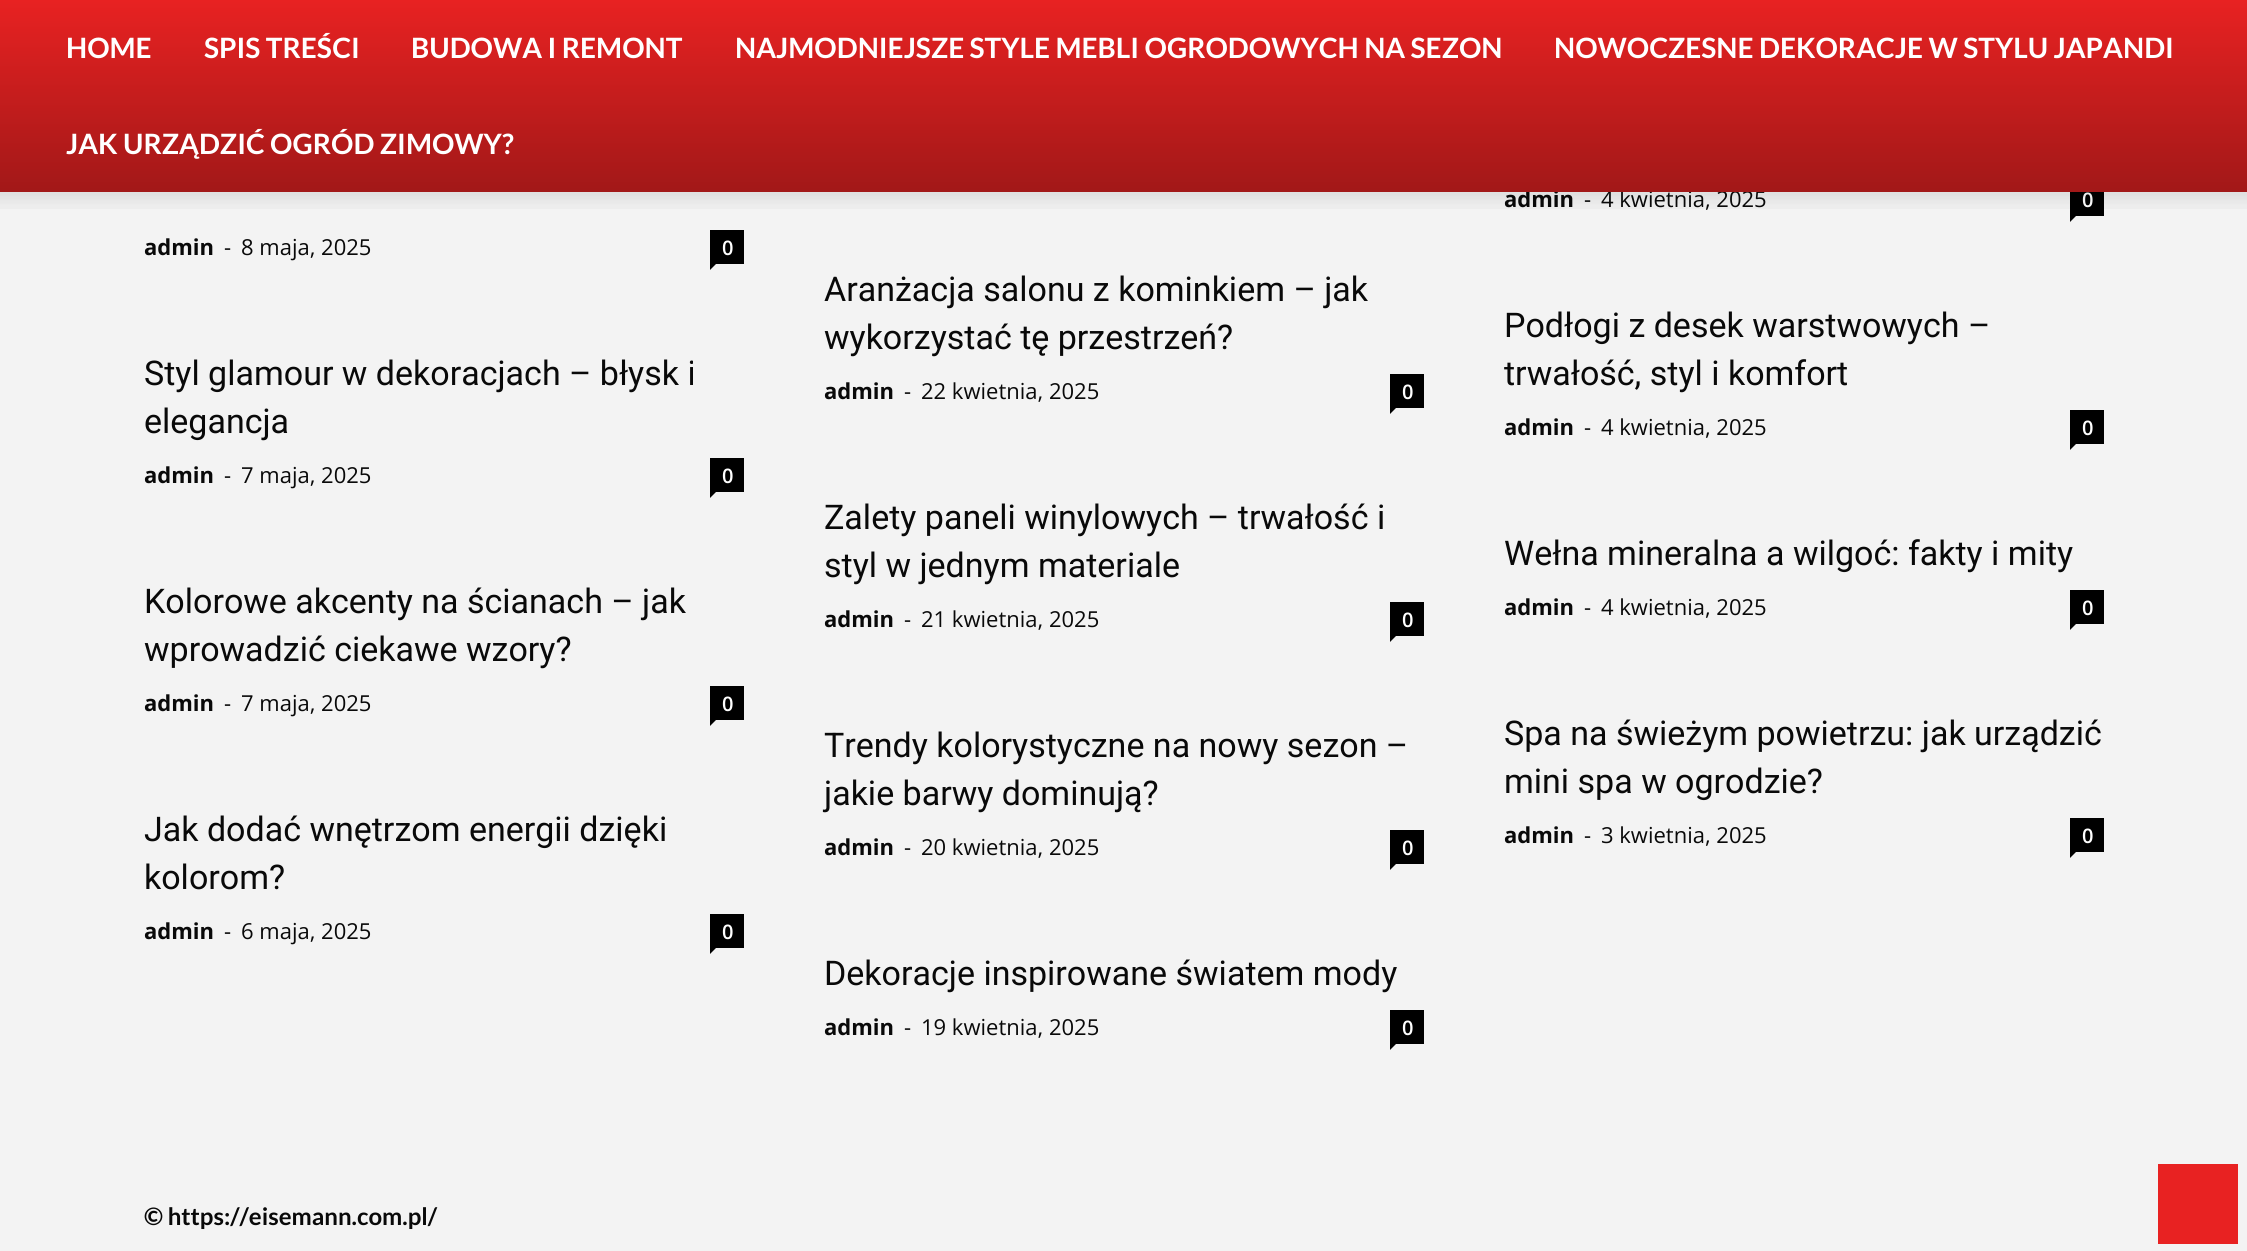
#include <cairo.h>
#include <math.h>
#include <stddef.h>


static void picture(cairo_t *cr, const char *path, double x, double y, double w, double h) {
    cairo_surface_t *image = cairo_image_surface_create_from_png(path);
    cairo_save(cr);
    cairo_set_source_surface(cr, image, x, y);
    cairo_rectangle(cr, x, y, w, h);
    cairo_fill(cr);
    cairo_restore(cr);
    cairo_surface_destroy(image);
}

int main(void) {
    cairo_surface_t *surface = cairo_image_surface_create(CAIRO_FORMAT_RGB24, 2247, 1251);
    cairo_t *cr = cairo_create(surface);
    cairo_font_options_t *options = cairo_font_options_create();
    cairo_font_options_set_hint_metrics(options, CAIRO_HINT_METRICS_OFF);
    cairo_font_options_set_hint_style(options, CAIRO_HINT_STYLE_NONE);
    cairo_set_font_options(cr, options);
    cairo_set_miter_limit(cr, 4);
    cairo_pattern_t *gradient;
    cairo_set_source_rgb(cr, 0.953, 0.953, 0.953);
    cairo_paint(cr);
    cairo_select_font_face(cr, "Open Sans", CAIRO_FONT_SLANT_NORMAL, CAIRO_FONT_WEIGHT_BOLD);
    cairo_set_font_size(cr, 22);
    cairo_set_source_rgb(cr, 0.039, 0.039, 0.039);
    cairo_move_to(cr, 1504, 207);
    cairo_show_text(cr, "admin");
    cairo_select_font_face(cr, "Open Sans", CAIRO_FONT_SLANT_NORMAL, CAIRO_FONT_WEIGHT_NORMAL);
    cairo_move_to(cr, 1601, 207);
    cairo_show_text(cr, "4 kwietnia, 2025");
    gradient = cairo_pattern_create_linear(1124, 0, 1124, 192);
    cairo_pattern_add_color_stop_rgba(gradient, 0, 0.91, 0.133, 0.133, 1);
    cairo_pattern_add_color_stop_rgba(gradient, 1, 0.635, 0.094, 0.094, 1);
    cairo_set_source(cr, gradient);
    cairo_pattern_destroy(gradient);
    cairo_rectangle(cr, 0, 0, 2247, 192);
    cairo_fill(cr);
    cairo_select_font_face(cr, "Lato", CAIRO_FONT_SLANT_NORMAL, CAIRO_FONT_WEIGHT_BOLD);
    cairo_set_font_size(cr, 28);
    cairo_set_source_rgb(cr, 1, 1, 1);
    cairo_move_to(cr, 66, 58);
    cairo_show_text(cr, "HOME");
    cairo_move_to(cr, 204, 58);
    cairo_show_text(cr, "SPIS TREŚCI");
    cairo_move_to(cr, 411, 58);
    cairo_show_text(cr, "BUDOWA I REMONT");
    cairo_move_to(cr, 735, 58);
    cairo_show_text(cr, "NAJMODNIEJSZE STYLE MEBLI OGRODOWYCH NA SEZON");
    cairo_move_to(cr, 1554, 58);
    cairo_show_text(cr, "NOWOCZESNE DEKORACJE W STYLU JAPANDI");
    cairo_move_to(cr, 66, 154);
    cairo_show_text(cr, "JAK URZĄDZIĆ OGRÓD ZIMOWY?");
    cairo_select_font_face(cr, "Open Sans", CAIRO_FONT_SLANT_NORMAL, CAIRO_FONT_WEIGHT_NORMAL);
    cairo_set_font_size(cr, 22);
    cairo_set_source_rgb(cr, 0.039, 0.039, 0.039);
    cairo_move_to(cr, 1584, 207);
    cairo_show_text(cr, "-");
    cairo_set_source_rgb(cr, 0, 0, 0);
    cairo_rectangle(cr, 2070, 192, 34, 24);
    cairo_fill(cr);
    cairo_select_font_face(cr, "Open Sans SemiBold", CAIRO_FONT_SLANT_NORMAL, CAIRO_FONT_WEIGHT_NORMAL);
    cairo_set_font_size(cr, 20);
    cairo_set_source_rgb(cr, 1, 1, 1);
    cairo_move_to(cr, 2082, 207);
    cairo_show_text(cr, "0");
    picture(cr, "img1.png", 0, 192, 2247, 17);
    cairo_select_font_face(cr, "Open Sans", CAIRO_FONT_SLANT_NORMAL, CAIRO_FONT_WEIGHT_BOLD);
    cairo_set_font_size(cr, 22);
    cairo_set_source_rgb(cr, 0.039, 0.039, 0.039);
    cairo_move_to(cr, 144, 255);
    cairo_show_text(cr, "admin");
    cairo_select_font_face(cr, "Open Sans", CAIRO_FONT_SLANT_NORMAL, CAIRO_FONT_WEIGHT_NORMAL);
    cairo_move_to(cr, 224, 255);
    cairo_show_text(cr, "-");
    cairo_move_to(cr, 241, 255);
    cairo_show_text(cr, "8 maja, 2025");
    cairo_set_source_rgb(cr, 0, 0, 0);
    cairo_rectangle(cr, 710, 230, 34, 34);
    cairo_fill(cr);
    cairo_select_font_face(cr, "Open Sans SemiBold", CAIRO_FONT_SLANT_NORMAL, CAIRO_FONT_WEIGHT_NORMAL);
    cairo_set_font_size(cr, 20);
    cairo_set_source_rgb(cr, 1, 1, 1);
    cairo_move_to(cr, 722, 255);
    cairo_show_text(cr, "0");
    cairo_set_source_rgb(cr, 0, 0, 0);
    cairo_new_path(cr);
    cairo_move_to(cr, 710, 264);
    cairo_line_to(cr, 716, 264);
    cairo_line_to(cr, 710, 270);
    cairo_close_path(cr);
    cairo_fill(cr);
    cairo_select_font_face(cr, "Roboto", CAIRO_FONT_SLANT_NORMAL, CAIRO_FONT_WEIGHT_NORMAL);
    cairo_set_font_size(cr, 34);
    cairo_set_source_rgb(cr, 0.039, 0.039, 0.039);
    cairo_move_to(cr, 144, 385);
    cairo_show_text(cr, "Styl glamour w dekoracjach – błysk i");
    cairo_move_to(cr, 144, 433);
    cairo_show_text(cr, "elegancja");
    cairo_select_font_face(cr, "Open Sans", CAIRO_FONT_SLANT_NORMAL, CAIRO_FONT_WEIGHT_BOLD);
    cairo_set_font_size(cr, 22);
    cairo_move_to(cr, 144, 483);
    cairo_show_text(cr, "admin");
    cairo_select_font_face(cr, "Open Sans", CAIRO_FONT_SLANT_NORMAL, CAIRO_FONT_WEIGHT_NORMAL);
    cairo_move_to(cr, 224, 483);
    cairo_show_text(cr, "-");
    cairo_move_to(cr, 241, 483);
    cairo_show_text(cr, "7 maja, 2025");
    cairo_set_source_rgb(cr, 0, 0, 0);
    cairo_rectangle(cr, 710, 458, 34, 34);
    cairo_fill(cr);
    cairo_select_font_face(cr, "Open Sans SemiBold", CAIRO_FONT_SLANT_NORMAL, CAIRO_FONT_WEIGHT_NORMAL);
    cairo_set_font_size(cr, 20);
    cairo_set_source_rgb(cr, 1, 1, 1);
    cairo_move_to(cr, 722, 483);
    cairo_show_text(cr, "0");
    cairo_set_source_rgb(cr, 0, 0, 0);
    cairo_new_path(cr);
    cairo_move_to(cr, 710, 492);
    cairo_line_to(cr, 716, 492);
    cairo_line_to(cr, 710, 498);
    cairo_close_path(cr);
    cairo_fill(cr);
    cairo_select_font_face(cr, "Roboto", CAIRO_FONT_SLANT_NORMAL, CAIRO_FONT_WEIGHT_NORMAL);
    cairo_set_font_size(cr, 34);
    cairo_set_source_rgb(cr, 0.039, 0.039, 0.039);
    cairo_move_to(cr, 144, 613);
    cairo_show_text(cr, "Kolorowe akcenty na ścianach – jak");
    cairo_move_to(cr, 144, 661);
    cairo_show_text(cr, "wprowadzić ciekawe wzory?");
    cairo_select_font_face(cr, "Open Sans", CAIRO_FONT_SLANT_NORMAL, CAIRO_FONT_WEIGHT_BOLD);
    cairo_set_font_size(cr, 22);
    cairo_move_to(cr, 144, 711);
    cairo_show_text(cr, "admin");
    cairo_select_font_face(cr, "Open Sans", CAIRO_FONT_SLANT_NORMAL, CAIRO_FONT_WEIGHT_NORMAL);
    cairo_move_to(cr, 224, 711);
    cairo_show_text(cr, "-");
    cairo_move_to(cr, 241, 711);
    cairo_show_text(cr, "7 maja, 2025");
    cairo_set_source_rgb(cr, 0, 0, 0);
    cairo_rectangle(cr, 710, 686, 34, 34);
    cairo_fill(cr);
    cairo_select_font_face(cr, "Open Sans SemiBold", CAIRO_FONT_SLANT_NORMAL, CAIRO_FONT_WEIGHT_NORMAL);
    cairo_set_font_size(cr, 20);
    cairo_set_source_rgb(cr, 1, 1, 1);
    cairo_move_to(cr, 722, 711);
    cairo_show_text(cr, "0");
    cairo_set_source_rgb(cr, 0, 0, 0);
    cairo_new_path(cr);
    cairo_move_to(cr, 710, 720);
    cairo_line_to(cr, 716, 720);
    cairo_line_to(cr, 710, 726);
    cairo_close_path(cr);
    cairo_fill(cr);
    cairo_select_font_face(cr, "Roboto", CAIRO_FONT_SLANT_NORMAL, CAIRO_FONT_WEIGHT_NORMAL);
    cairo_set_font_size(cr, 34);
    cairo_set_source_rgb(cr, 0.039, 0.039, 0.039);
    cairo_move_to(cr, 144, 841);
    cairo_show_text(cr, "Jak dodać wnętrzom energii dzięki");
    cairo_move_to(cr, 144, 889);
    cairo_show_text(cr, "kolorom?");
    cairo_select_font_face(cr, "Open Sans", CAIRO_FONT_SLANT_NORMAL, CAIRO_FONT_WEIGHT_BOLD);
    cairo_set_font_size(cr, 22);
    cairo_move_to(cr, 144, 939);
    cairo_show_text(cr, "admin");
    cairo_select_font_face(cr, "Open Sans", CAIRO_FONT_SLANT_NORMAL, CAIRO_FONT_WEIGHT_NORMAL);
    cairo_move_to(cr, 224, 939);
    cairo_show_text(cr, "-");
    cairo_move_to(cr, 241, 939);
    cairo_show_text(cr, "6 maja, 2025");
    cairo_set_source_rgb(cr, 0, 0, 0);
    cairo_rectangle(cr, 710, 914, 34, 34);
    cairo_fill(cr);
    cairo_select_font_face(cr, "Open Sans SemiBold", CAIRO_FONT_SLANT_NORMAL, CAIRO_FONT_WEIGHT_NORMAL);
    cairo_set_font_size(cr, 20);
    cairo_set_source_rgb(cr, 1, 1, 1);
    cairo_move_to(cr, 722, 939);
    cairo_show_text(cr, "0");
    cairo_set_source_rgb(cr, 0, 0, 0);
    cairo_new_path(cr);
    cairo_move_to(cr, 710, 948);
    cairo_line_to(cr, 716, 948);
    cairo_line_to(cr, 710, 954);
    cairo_close_path(cr);
    cairo_fill(cr);
    cairo_select_font_face(cr, "Roboto", CAIRO_FONT_SLANT_NORMAL, CAIRO_FONT_WEIGHT_NORMAL);
    cairo_set_font_size(cr, 34);
    cairo_set_source_rgb(cr, 0.039, 0.039, 0.039);
    cairo_move_to(cr, 824, 301);
    cairo_show_text(cr, "Aranżacja salonu z kominkiem – jak");
    cairo_move_to(cr, 824, 349);
    cairo_show_text(cr, "wykorzystać tę przestrzeń?");
    cairo_select_font_face(cr, "Open Sans", CAIRO_FONT_SLANT_NORMAL, CAIRO_FONT_WEIGHT_BOLD);
    cairo_set_font_size(cr, 22);
    cairo_move_to(cr, 824, 399);
    cairo_show_text(cr, "admin");
    cairo_select_font_face(cr, "Open Sans", CAIRO_FONT_SLANT_NORMAL, CAIRO_FONT_WEIGHT_NORMAL);
    cairo_move_to(cr, 904, 399);
    cairo_show_text(cr, "-");
    cairo_move_to(cr, 921, 399);
    cairo_show_text(cr, "22 kwietnia, 2025");
    cairo_set_source_rgb(cr, 0, 0, 0);
    cairo_rectangle(cr, 1390, 374, 34, 34);
    cairo_fill(cr);
    cairo_select_font_face(cr, "Open Sans SemiBold", CAIRO_FONT_SLANT_NORMAL, CAIRO_FONT_WEIGHT_NORMAL);
    cairo_set_font_size(cr, 20);
    cairo_set_source_rgb(cr, 1, 1, 1);
    cairo_move_to(cr, 1402, 399);
    cairo_show_text(cr, "0");
    cairo_set_source_rgb(cr, 0, 0, 0);
    cairo_new_path(cr);
    cairo_move_to(cr, 1390, 408);
    cairo_line_to(cr, 1396, 408);
    cairo_line_to(cr, 1390, 414);
    cairo_close_path(cr);
    cairo_fill(cr);
    cairo_select_font_face(cr, "Roboto", CAIRO_FONT_SLANT_NORMAL, CAIRO_FONT_WEIGHT_NORMAL);
    cairo_set_font_size(cr, 34);
    cairo_set_source_rgb(cr, 0.039, 0.039, 0.039);
    cairo_move_to(cr, 824, 529);
    cairo_show_text(cr, "Zalety paneli winylowych – trwałość i");
    cairo_move_to(cr, 824, 577);
    cairo_show_text(cr, "styl w jednym materiale");
    cairo_select_font_face(cr, "Open Sans", CAIRO_FONT_SLANT_NORMAL, CAIRO_FONT_WEIGHT_BOLD);
    cairo_set_font_size(cr, 22);
    cairo_move_to(cr, 824, 627);
    cairo_show_text(cr, "admin");
    cairo_select_font_face(cr, "Open Sans", CAIRO_FONT_SLANT_NORMAL, CAIRO_FONT_WEIGHT_NORMAL);
    cairo_move_to(cr, 904, 627);
    cairo_show_text(cr, "-");
    cairo_move_to(cr, 921, 627);
    cairo_show_text(cr, "21 kwietnia, 2025");
    cairo_set_source_rgb(cr, 0, 0, 0);
    cairo_rectangle(cr, 1390, 602, 34, 34);
    cairo_fill(cr);
    cairo_select_font_face(cr, "Open Sans SemiBold", CAIRO_FONT_SLANT_NORMAL, CAIRO_FONT_WEIGHT_NORMAL);
    cairo_set_font_size(cr, 20);
    cairo_set_source_rgb(cr, 1, 1, 1);
    cairo_move_to(cr, 1402, 627);
    cairo_show_text(cr, "0");
    cairo_set_source_rgb(cr, 0, 0, 0);
    cairo_new_path(cr);
    cairo_move_to(cr, 1390, 636);
    cairo_line_to(cr, 1396, 636);
    cairo_line_to(cr, 1390, 642);
    cairo_close_path(cr);
    cairo_fill(cr);
    cairo_select_font_face(cr, "Roboto", CAIRO_FONT_SLANT_NORMAL, CAIRO_FONT_WEIGHT_NORMAL);
    cairo_set_font_size(cr, 34);
    cairo_set_source_rgb(cr, 0.039, 0.039, 0.039);
    cairo_move_to(cr, 824, 757);
    cairo_show_text(cr, "Trendy kolorystyczne na nowy sezon –");
    cairo_move_to(cr, 824, 805);
    cairo_show_text(cr, "jakie barwy dominują?");
    cairo_select_font_face(cr, "Open Sans", CAIRO_FONT_SLANT_NORMAL, CAIRO_FONT_WEIGHT_BOLD);
    cairo_set_font_size(cr, 22);
    cairo_move_to(cr, 824, 855);
    cairo_show_text(cr, "admin");
    cairo_select_font_face(cr, "Open Sans", CAIRO_FONT_SLANT_NORMAL, CAIRO_FONT_WEIGHT_NORMAL);
    cairo_move_to(cr, 904, 855);
    cairo_show_text(cr, "-");
    cairo_move_to(cr, 921, 855);
    cairo_show_text(cr, "20 kwietnia, 2025");
    cairo_set_source_rgb(cr, 0, 0, 0);
    cairo_rectangle(cr, 1390, 830, 34, 34);
    cairo_fill(cr);
    cairo_select_font_face(cr, "Open Sans SemiBold", CAIRO_FONT_SLANT_NORMAL, CAIRO_FONT_WEIGHT_NORMAL);
    cairo_set_font_size(cr, 20);
    cairo_set_source_rgb(cr, 1, 1, 1);
    cairo_move_to(cr, 1402, 855);
    cairo_show_text(cr, "0");
    cairo_set_source_rgb(cr, 0, 0, 0);
    cairo_new_path(cr);
    cairo_move_to(cr, 1390, 864);
    cairo_line_to(cr, 1396, 864);
    cairo_line_to(cr, 1390, 870);
    cairo_close_path(cr);
    cairo_fill(cr);
    cairo_select_font_face(cr, "Roboto", CAIRO_FONT_SLANT_NORMAL, CAIRO_FONT_WEIGHT_NORMAL);
    cairo_set_font_size(cr, 34);
    cairo_set_source_rgb(cr, 0.039, 0.039, 0.039);
    cairo_move_to(cr, 824, 985);
    cairo_show_text(cr, "Dekoracje inspirowane światem mody");
    cairo_select_font_face(cr, "Open Sans", CAIRO_FONT_SLANT_NORMAL, CAIRO_FONT_WEIGHT_BOLD);
    cairo_set_font_size(cr, 22);
    cairo_move_to(cr, 824, 1035);
    cairo_show_text(cr, "admin");
    cairo_select_font_face(cr, "Open Sans", CAIRO_FONT_SLANT_NORMAL, CAIRO_FONT_WEIGHT_NORMAL);
    cairo_move_to(cr, 904, 1035);
    cairo_show_text(cr, "-");
    cairo_move_to(cr, 921, 1035);
    cairo_show_text(cr, "19 kwietnia, 2025");
    cairo_set_source_rgb(cr, 0, 0, 0);
    cairo_rectangle(cr, 1390, 1010, 34, 34);
    cairo_fill(cr);
    cairo_select_font_face(cr, "Open Sans SemiBold", CAIRO_FONT_SLANT_NORMAL, CAIRO_FONT_WEIGHT_NORMAL);
    cairo_set_font_size(cr, 20);
    cairo_set_source_rgb(cr, 1, 1, 1);
    cairo_move_to(cr, 1402, 1035);
    cairo_show_text(cr, "0");
    cairo_set_source_rgb(cr, 0, 0, 0);
    cairo_new_path(cr);
    cairo_move_to(cr, 1390, 1044);
    cairo_line_to(cr, 1396, 1044);
    cairo_line_to(cr, 1390, 1050);
    cairo_close_path(cr);
    cairo_fill(cr);
    cairo_new_path(cr);
    cairo_move_to(cr, 2070, 216);
    cairo_line_to(cr, 2076, 216);
    cairo_line_to(cr, 2070, 222);
    cairo_close_path(cr);
    cairo_fill(cr);
    cairo_select_font_face(cr, "Roboto", CAIRO_FONT_SLANT_NORMAL, CAIRO_FONT_WEIGHT_NORMAL);
    cairo_set_font_size(cr, 34);
    cairo_set_source_rgb(cr, 0.039, 0.039, 0.039);
    cairo_move_to(cr, 1504, 337);
    cairo_show_text(cr, "Podłogi z desek warstwowych –");
    cairo_move_to(cr, 1504, 385);
    cairo_show_text(cr, "trwałość, styl i komfort");
    cairo_select_font_face(cr, "Open Sans", CAIRO_FONT_SLANT_NORMAL, CAIRO_FONT_WEIGHT_BOLD);
    cairo_set_font_size(cr, 22);
    cairo_move_to(cr, 1504, 435);
    cairo_show_text(cr, "admin");
    cairo_select_font_face(cr, "Open Sans", CAIRO_FONT_SLANT_NORMAL, CAIRO_FONT_WEIGHT_NORMAL);
    cairo_move_to(cr, 1584, 435);
    cairo_show_text(cr, "-");
    cairo_move_to(cr, 1601, 435);
    cairo_show_text(cr, "4 kwietnia, 2025");
    cairo_set_source_rgb(cr, 0, 0, 0);
    cairo_rectangle(cr, 2070, 410, 34, 34);
    cairo_fill(cr);
    cairo_select_font_face(cr, "Open Sans SemiBold", CAIRO_FONT_SLANT_NORMAL, CAIRO_FONT_WEIGHT_NORMAL);
    cairo_set_font_size(cr, 20);
    cairo_set_source_rgb(cr, 1, 1, 1);
    cairo_move_to(cr, 2082, 435);
    cairo_show_text(cr, "0");
    cairo_set_source_rgb(cr, 0, 0, 0);
    cairo_new_path(cr);
    cairo_move_to(cr, 2070, 444);
    cairo_line_to(cr, 2076, 444);
    cairo_line_to(cr, 2070, 450);
    cairo_close_path(cr);
    cairo_fill(cr);
    cairo_select_font_face(cr, "Roboto", CAIRO_FONT_SLANT_NORMAL, CAIRO_FONT_WEIGHT_NORMAL);
    cairo_set_font_size(cr, 34);
    cairo_set_source_rgb(cr, 0.039, 0.039, 0.039);
    cairo_move_to(cr, 1504, 565);
    cairo_show_text(cr, "Wełna mineralna a wilgoć: fakty i mity");
    cairo_select_font_face(cr, "Open Sans", CAIRO_FONT_SLANT_NORMAL, CAIRO_FONT_WEIGHT_BOLD);
    cairo_set_font_size(cr, 22);
    cairo_move_to(cr, 1504, 615);
    cairo_show_text(cr, "admin");
    cairo_select_font_face(cr, "Open Sans", CAIRO_FONT_SLANT_NORMAL, CAIRO_FONT_WEIGHT_NORMAL);
    cairo_move_to(cr, 1584, 615);
    cairo_show_text(cr, "-");
    cairo_move_to(cr, 1601, 615);
    cairo_show_text(cr, "4 kwietnia, 2025");
    cairo_set_source_rgb(cr, 0, 0, 0);
    cairo_rectangle(cr, 2070, 590, 34, 34);
    cairo_fill(cr);
    cairo_select_font_face(cr, "Open Sans SemiBold", CAIRO_FONT_SLANT_NORMAL, CAIRO_FONT_WEIGHT_NORMAL);
    cairo_set_font_size(cr, 20);
    cairo_set_source_rgb(cr, 1, 1, 1);
    cairo_move_to(cr, 2082, 615);
    cairo_show_text(cr, "0");
    cairo_set_source_rgb(cr, 0, 0, 0);
    cairo_new_path(cr);
    cairo_move_to(cr, 2070, 624);
    cairo_line_to(cr, 2076, 624);
    cairo_line_to(cr, 2070, 630);
    cairo_close_path(cr);
    cairo_fill(cr);
    cairo_select_font_face(cr, "Roboto", CAIRO_FONT_SLANT_NORMAL, CAIRO_FONT_WEIGHT_NORMAL);
    cairo_set_font_size(cr, 34);
    cairo_set_source_rgb(cr, 0.039, 0.039, 0.039);
    cairo_move_to(cr, 1504, 745);
    cairo_show_text(cr, "Spa na świeżym powietrzu: jak urządzić");
    cairo_move_to(cr, 1504, 793);
    cairo_show_text(cr, "mini spa w ogrodzie?");
    cairo_select_font_face(cr, "Open Sans", CAIRO_FONT_SLANT_NORMAL, CAIRO_FONT_WEIGHT_BOLD);
    cairo_set_font_size(cr, 22);
    cairo_move_to(cr, 1504, 843);
    cairo_show_text(cr, "admin");
    cairo_select_font_face(cr, "Open Sans", CAIRO_FONT_SLANT_NORMAL, CAIRO_FONT_WEIGHT_NORMAL);
    cairo_move_to(cr, 1584, 843);
    cairo_show_text(cr, "-");
    cairo_move_to(cr, 1601, 843);
    cairo_show_text(cr, "3 kwietnia, 2025");
    cairo_set_source_rgb(cr, 0, 0, 0);
    cairo_rectangle(cr, 2070, 818, 34, 34);
    cairo_fill(cr);
    cairo_select_font_face(cr, "Open Sans SemiBold", CAIRO_FONT_SLANT_NORMAL, CAIRO_FONT_WEIGHT_NORMAL);
    cairo_set_font_size(cr, 20);
    cairo_set_source_rgb(cr, 1, 1, 1);
    cairo_move_to(cr, 2082, 843);
    cairo_show_text(cr, "0");
    cairo_set_source_rgb(cr, 0, 0, 0);
    cairo_new_path(cr);
    cairo_move_to(cr, 2070, 852);
    cairo_line_to(cr, 2076, 852);
    cairo_line_to(cr, 2070, 858);
    cairo_close_path(cr);
    cairo_fill(cr);
    cairo_select_font_face(cr, "Lato", CAIRO_FONT_SLANT_NORMAL, CAIRO_FONT_WEIGHT_BOLD);
    cairo_set_font_size(cr, 24);
    cairo_set_source_rgb(cr, 0.039, 0.039, 0.039);
    cairo_move_to(cr, 144, 1225);
    cairo_show_text(cr, "© https://eisemann.com.pl/");
    cairo_set_source_rgb(cr, 0.91, 0.133, 0.133);
    cairo_rectangle(cr, 2158, 1164, 80, 80);
    cairo_fill(cr);
    cairo_surface_write_to_png(surface, "page.png");
    cairo_font_options_destroy(options);
    cairo_destroy(cr);
    cairo_surface_destroy(surface);
    return 0;
}
